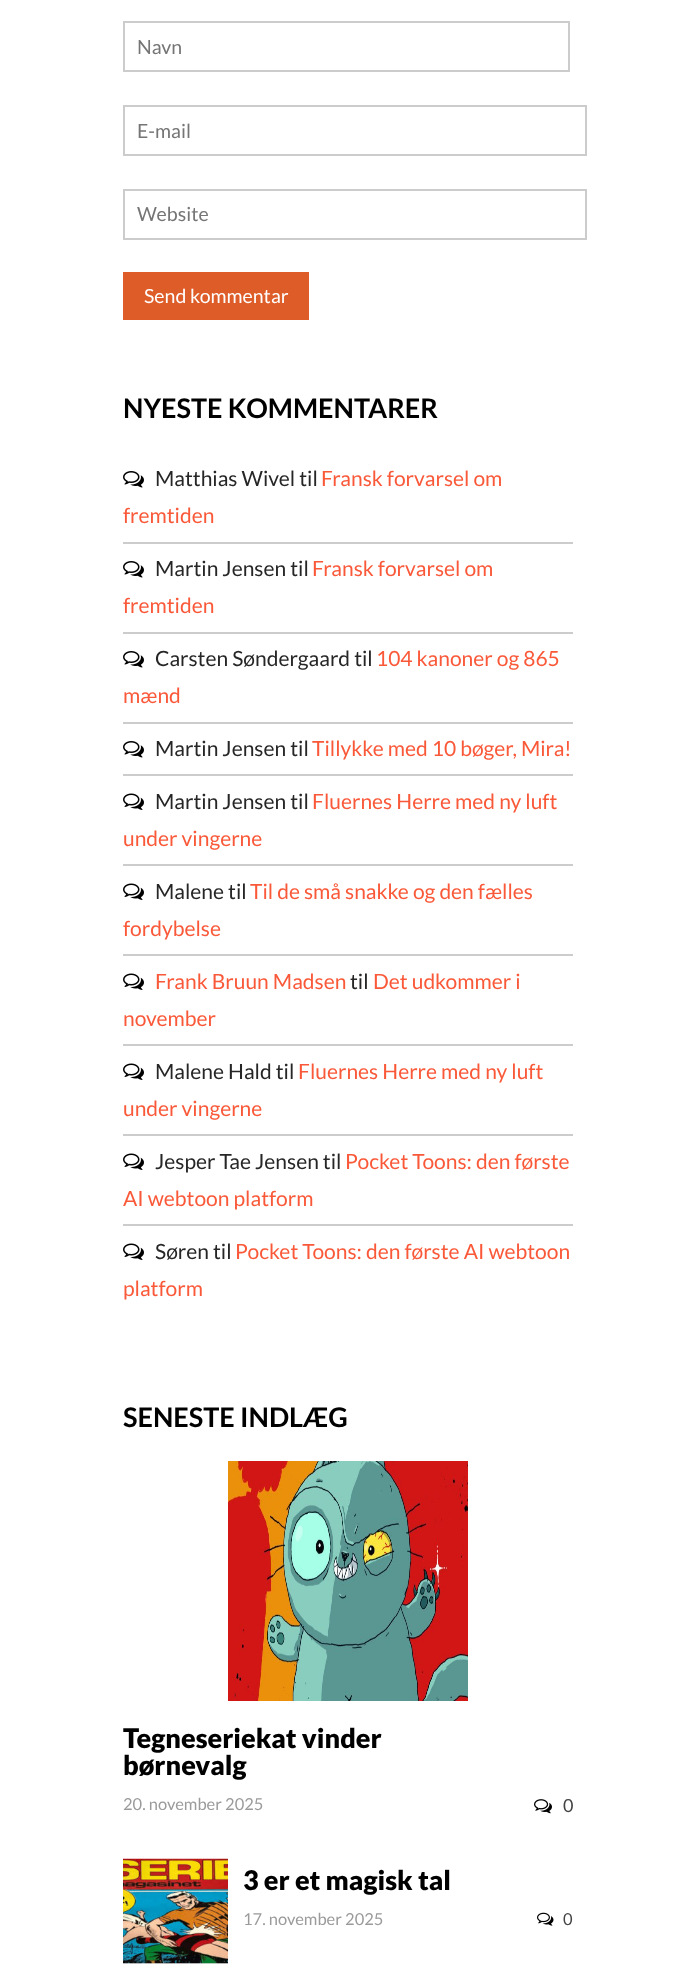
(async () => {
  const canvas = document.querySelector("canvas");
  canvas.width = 696;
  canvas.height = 1979;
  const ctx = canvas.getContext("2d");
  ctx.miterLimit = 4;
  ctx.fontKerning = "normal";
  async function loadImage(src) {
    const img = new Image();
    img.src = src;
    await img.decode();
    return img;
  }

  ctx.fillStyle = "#ffffff";
  ctx.fillRect(0, 0, 696, 1979);
  ctx.strokeStyle = "#cccccc";
  ctx.lineWidth = 2;
  ctx.strokeRect(124, 22, 445, 49);
  ctx.strokeRect(124, 106, 462, 49);
  ctx.strokeRect(124, 190, 462, 49);
  ctx.fillStyle = "#de5c28";
  ctx.fillRect(123, 272, 186, 48);
  ctx.fillStyle = "#cccccc";
  ctx.fillRect(123, 542, 450, 2);
  ctx.drawImage(await loadImage("img/1.png"), 123, 471, 21, 17);
  ctx.fillRect(123, 632, 450, 2);
  ctx.drawImage(await loadImage("img/1.png"), 123, 561, 21, 17);
  ctx.fillRect(123, 722, 450, 2);
  ctx.drawImage(await loadImage("img/1.png"), 123, 651, 21, 17);
  ctx.fillRect(123, 774, 450, 2);
  ctx.drawImage(await loadImage("img/1.png"), 123, 741, 21, 17);
  ctx.fillRect(123, 864, 450, 2);
  ctx.drawImage(await loadImage("img/2.png"), 123, 793, 21, 17);
  ctx.fillRect(123, 954, 450, 2);
  ctx.drawImage(await loadImage("img/2.png"), 123, 883, 21, 17);
  ctx.fillRect(123, 1044, 450, 2);
  ctx.drawImage(await loadImage("img/2.png"), 123, 973, 21, 17);
  ctx.fillRect(123, 1134, 450, 2);
  ctx.drawImage(await loadImage("img/2.png"), 123, 1063, 21, 17);
  ctx.fillRect(123, 1224, 450, 2);
  ctx.drawImage(await loadImage("img/2.png"), 123, 1153, 21, 17);
  ctx.drawImage(await loadImage("img/2.png"), 123, 1243, 21, 17);
  ctx.drawImage(await loadImage("img/3.png"), 228, 1461, 240, 240);
  ctx.drawImage(await loadImage("img/4.png"), 534, 1799, 18, 15);
  ctx.fillStyle = "#ebebeb";
  ctx.fillRect(123, 1963, 105, 1);
  ctx.drawImage(await loadImage("img/5.png"), 123, 1858, 105, 106);
  ctx.drawImage(await loadImage("img/6.png"), 537, 1912, 17, 14);
  ctx.font = "19.5px Lato";
  ctx.fillStyle = "#757575";
  for (const [text, x, y] of [
    ["Navn", 137, 54],
    ["E-mail", 137, 138],
    ["Website", 137, 221],
  ]) {
    ctx.fillText(text, x, y);
  }
  ctx.fillStyle = "#ffffff";
  ctx.fillText("Send kommentar", 144, 303);
  ctx.font = "bold 27px Lato";
  ctx.fillStyle = "#000000";
  ctx.fillText("NYESTE KOMMENTARER", 123, 418);
  ctx.font = "21px Lato";
  ctx.fillStyle = "#262626";
  ctx.fillText("Matthias Wivel til", 155, 486);
  ctx.fillStyle = "#fa5939";
  ctx.fillText("Fransk forvarsel om", 321, 486);
  ctx.fillText("fremtiden", 123, 523);
  ctx.fillStyle = "#262626";
  ctx.fillText("Martin Jensen til", 155, 576);
  ctx.fillStyle = "#fa5939";
  ctx.fillText("Fransk forvarsel om", 312, 576);
  ctx.fillText("fremtiden", 123, 613);
  ctx.fillStyle = "#262626";
  ctx.fillText("Carsten Søndergaard til", 155, 666);
  ctx.fillStyle = "#fa5939";
  ctx.fillText("104 kanoner og 865", 376, 666);
  ctx.fillText("mænd", 123, 703);
  ctx.fillStyle = "#262626";
  ctx.fillText("Martin Jensen til", 155, 756);
  ctx.fillStyle = "#fa5939";
  ctx.fillText("Tillykke med 10 bøger, Mira!", 312, 756);
  ctx.fillStyle = "#262626";
  ctx.fillText("Martin Jensen til", 155, 809);
  ctx.fillStyle = "#fa5939";
  ctx.fillText("Fluernes Herre med ny luft", 312, 809);
  ctx.fillText("under vingerne", 123, 846);
  ctx.fillStyle = "#262626";
  ctx.fillText("Malene til", 155, 899);
  ctx.fillStyle = "#fa5939";
  for (const [text, x, y] of [
    ["Til de små snakke og den fælles", 250, 899],
    ["fordybelse", 123, 936],
    ["Frank Bruun Madsen", 155, 989],
  ]) {
    ctx.fillText(text, x, y);
  }
  ctx.fillStyle = "#262626";
  ctx.fillText("til", 350, 989);
  ctx.fillStyle = "#fa5939";
  ctx.fillText("Det udkommer i", 373, 989);
  ctx.fillText("november", 123, 1026);
  ctx.fillStyle = "#262626";
  ctx.fillText("Malene Hald til", 155, 1079);
  ctx.fillStyle = "#fa5939";
  ctx.fillText("Fluernes Herre med ny luft", 298, 1079);
  ctx.fillText("under vingerne", 123, 1116);
  ctx.fillStyle = "#262626";
  ctx.fillText("Jesper Tae Jensen til", 155, 1169);
  ctx.fillStyle = "#fa5939";
  ctx.fillText("Pocket Toons: den første", 345, 1169);
  ctx.fillText("AI webtoon platform", 123, 1206);
  ctx.fillStyle = "#262626";
  ctx.fillText("Søren til", 155, 1259);
  ctx.fillStyle = "#fa5939";
  ctx.fillText("Pocket Toons: den første AI webtoon", 235, 1259);
  ctx.fillText("platform", 123, 1296);
  ctx.font = "bold 27px Lato";
  ctx.fillStyle = "#000000";
  ctx.fillText("SENESTE INDLÆG", 123, 1427);
  ctx.font = "900 27px Lato";
  ctx.fillText("Tegneseriekat vinder", 123, 1748);
  ctx.fillText("børnevalg", 123, 1775);
  ctx.font = "16.5px Lato";
  ctx.fillStyle = "#9b9b9b";
  ctx.fillText("20. november 2025", 123, 1810);
  ctx.font = "18px Lato";
  ctx.fillStyle = "#444444";
  ctx.fillText("0", 563, 1812);
  ctx.font = "900 27px Lato";
  ctx.fillStyle = "#000000";
  ctx.fillText("3 er et magisk tal", 243, 1890);
  ctx.font = "16.5px Lato";
  ctx.fillStyle = "#9b9b9b";
  ctx.fillText("17. november 2025", 243, 1925);
  ctx.fillStyle = "#444444";
  ctx.fillText("0", 563, 1925);
})();
